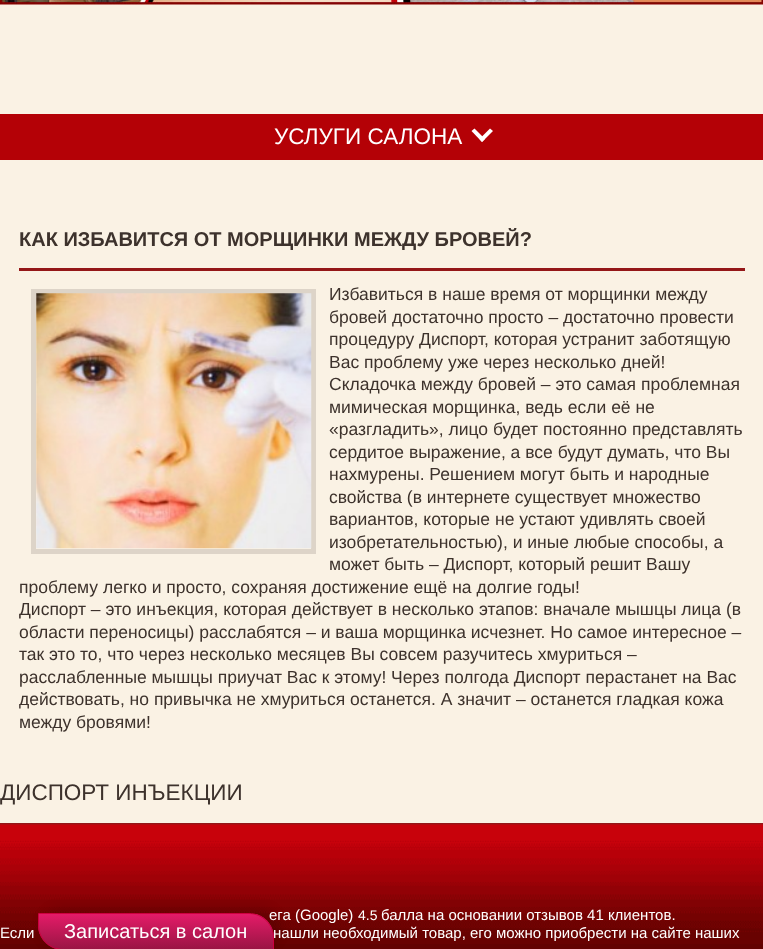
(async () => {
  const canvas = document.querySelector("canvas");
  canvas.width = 763;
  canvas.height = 949;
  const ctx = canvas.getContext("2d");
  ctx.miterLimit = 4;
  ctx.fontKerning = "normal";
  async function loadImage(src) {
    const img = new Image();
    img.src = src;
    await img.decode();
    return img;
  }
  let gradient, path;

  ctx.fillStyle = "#faf2e4";
  ctx.fillRect(0, 0, 763, 949);
  ctx.drawImage(await loadImage("img/1.png"), 0, 0, 763, 5);
  ctx.fillStyle = "#b40106";
  ctx.fillRect(0, 114, 763, 46);
  ctx.fillStyle = "#ffffff";
  path = new Path2D("M490 128.5L493 131L482 142L479.5 139Z");
  ctx.fill(path);
  path = new Path2D("M474.5 128.5L485 139L482 142L471.5 131Z");
  ctx.fill(path);
  ctx.fillStyle = "#941718";
  ctx.fillRect(19, 268, 726, 3);
  ctx.strokeStyle = "#ddd4c8";
  ctx.lineWidth = 5;
  ctx.strokeRect(33.5, 291.5, 280, 260);
  ctx.drawImage(await loadImage("img/2.png"), 36, 293, 276, 256);
  ctx.fillRect(0, 823, 763, 2);
  ctx.fillStyle = "#620201";
  ctx.fillRect(0, 825, 763, 124);
  ctx.drawImage(await loadImage("img/3.png"), 0, 824, 763, 120);
  ctx.fillStyle = "rgba(0, 0, 0, 0.12)";
  ctx.filter = "blur(5.5px)";
  ctx.beginPath();
  ctx.roundRect(41, 908, 239, 40, 26);
  ctx.fill();
  ctx.filter = "none";
  ctx.font = "22.5px Liberation Sans";
  ctx.fillStyle = "#ffffff";
  ctx.fillText("УСЛУГИ САЛОНА", 274, 144);
  ctx.font = "bold 20px Liberation Sans";
  ctx.fillStyle = "#3d322c";
  ctx.fillText("КАК ИЗБАВИТСЯ ОТ МОРЩИНКИ МЕЖДУ БРОВЕЙ?", 19, 246);
  ctx.font = "17.5px Liberation Sans";
  for (const [text, x, y] of [
    ["Избавиться в наше время от морщинки между", 329, 300],
    ["бровей достаточно просто – достаточно провести", 329, 323],
    ["процедуру Диспорт, которая устранит заботящую", 329, 345],
    ["Вас проблему уже через несколько дней!", 329, 368],
    ["Складочка между бровей – это самая проблемная", 329, 390],
    ["мимическая морщинка, ведь если её не", 329, 413],
    ["«разгладить», лицо будет постоянно представлять", 329, 435],
    ["сердитое выражение, а все будут думать, что Вы", 329, 458],
    ["нахмурены. Решением могут быть и народные", 329, 480],
    ["свойства (в интернете существует множество", 329, 503],
    ["вариантов, которые не устают удивлять своей", 329, 525],
    ["изобретательностью), и иные любые способы, а", 329, 548],
    ["может быть – Диспорт, который решит Вашу", 329, 570],
    ["проблему легко и просто, сохраняя достижение ещё на долгие годы!", 19, 593],
    ["Диспорт – это инъекция, которая действует в несколько этапов: вначале мышцы лица (в", 19, 615],
    ["области переносицы) расслабятся – и ваша морщинка исчезнет. Но самое интересное –", 19, 638],
    ["так это то, что через несколько месяцев Вы совсем разучитесь хмуриться –", 19, 660],
    ["расслабленные мышцы приучат Вас к этому! Через полгода Диспорт перастанет на Вас", 19, 683],
    ["действовать, но привычка не хмуриться останется. А значит – останется гладкая кожа", 19, 705],
    ["между бровями!", 19, 728],
  ]) {
    ctx.fillText(text, x, y);
  }
  ctx.font = "22.5px Liberation Sans";
  ctx.fillText("ДИСПОРТ ИНЪЕКЦИИ", 0, 800);
  ctx.font = "15px Liberation Sans";
  ctx.fillStyle = "#ffffff";
  ctx.fillText("ега (Google)", 269, 920);
  ctx.font = "14px Liberation Sans";
  ctx.fillText("4.5", 358, 920);
  ctx.font = "15px Liberation Sans";
  for (const [text, x, y] of [
    ["балла на основании отзывов 41 клиентов.", 381, 920],
    ["Если", 0, 938],
    ["нашли необходимый товар, его можно приобрести на сайте наших", 273, 938],
  ]) {
    ctx.fillText(text, x, y);
  }
  ctx.save();
  path = new Path2D("M38 913H249C263 913 274 924 274 938V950H63C49 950 38 939 38 925Z");
  ctx.clip(path);
  gradient = ctx.createLinearGradient(156, 914, 156, 949);
  gradient.addColorStop(0, "#e41b68");
  gradient.addColorStop(1, "#9a1544");
  ctx.fillStyle = gradient;
  ctx.fillRect(38, 914, 236, 35);
  ctx.restore();
  path = new Path2D("M38.5 913.5H249C262.5 913.5 273.5 924.5 273.5 938V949.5H63C49.5 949.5 38.5 938.5 38.5 925Z");
  ctx.strokeStyle = "#cd0040";
  ctx.lineWidth = 1;
  ctx.stroke(path);
  ctx.font = "20px Liberation Sans";
  ctx.fillText("Записаться в салон", 64, 938);
})();
